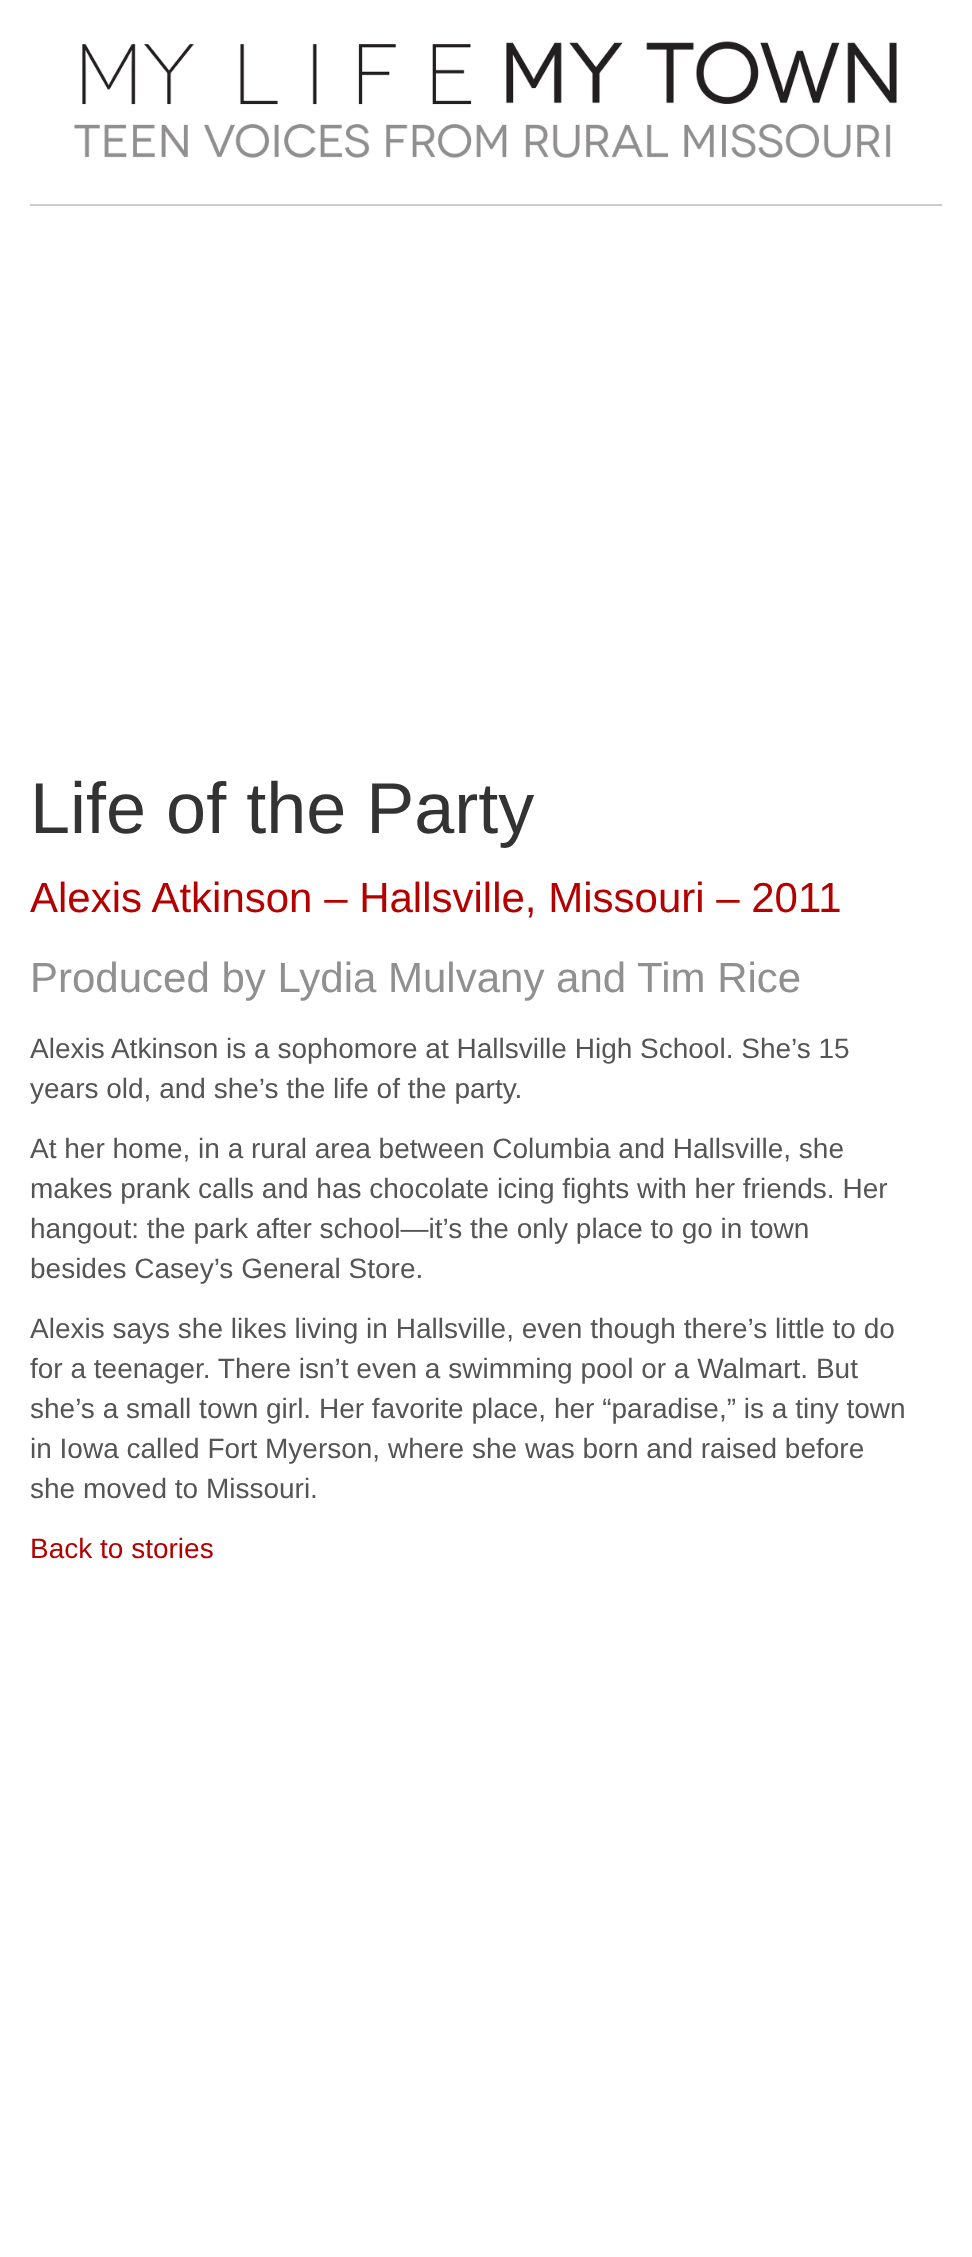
(async () => {
  const canvas = document.querySelector("canvas");
  canvas.width = 972;
  canvas.height = 2257;
  const ctx = canvas.getContext("2d");
  ctx.miterLimit = 4;
  ctx.fontKerning = "normal";
  async function loadImage(src) {
    const img = new Image();
    img.src = src;
    await img.decode();
    return img;
  }

  ctx.fillStyle = "#ffffff";
  ctx.fillRect(0, 0, 972, 2257);
  ctx.fillStyle = "#cccccc";
  ctx.fillRect(30, 204, 912, 2);
  ctx.drawImage(await loadImage("img/1.png"), 74, 41, 823, 117);
  ctx.font = "72px Liberation Sans";
  ctx.fillStyle = "#333333";
  ctx.fillText("Life of the Party", 30, 833);
  ctx.font = "42px Liberation Sans";
  ctx.fillStyle = "#b40001";
  ctx.fillText("Alexis Atkinson – Hallsville, Missouri – 2011", 30, 912);
  ctx.fillStyle = "#909090";
  ctx.fillText("Produced by Lydia Mulvany and Tim Rice", 30, 992);
  ctx.font = "28px Liberation Sans";
  ctx.fillStyle = "#555555";
  for (const [text, x, y] of [
    ["Alexis Atkinson is a sophomore at Hallsville High School. She’s 15", 30, 1058],
    ["years old, and she’s the life of the party.", 30, 1098],
    ["At her home, in a rural area between Columbia and Hallsville, she", 30, 1158],
    ["makes prank calls and has chocolate icing fights with her friends. Her", 30, 1198],
    ["hangout: the park after school—it’s the only place to go in town", 30, 1238],
    ["besides Casey’s General Store.", 30, 1278],
    ["Alexis says she likes living in Hallsville, even though there’s little to do", 30, 1338],
    ["for a teenager. There isn’t even a swimming pool or a Walmart. But", 30, 1378],
    ["she’s a small town girl. Her favorite place, her “paradise,” is a tiny town", 30, 1418],
    ["in Iowa called Fort Myerson, where she was born and raised before", 30, 1458],
    ["she moved to Missouri.", 30, 1498],
  ]) {
    ctx.fillText(text, x, y);
  }
  ctx.fillStyle = "#b40001";
  ctx.fillText("Back to stories", 30, 1558);
})();
